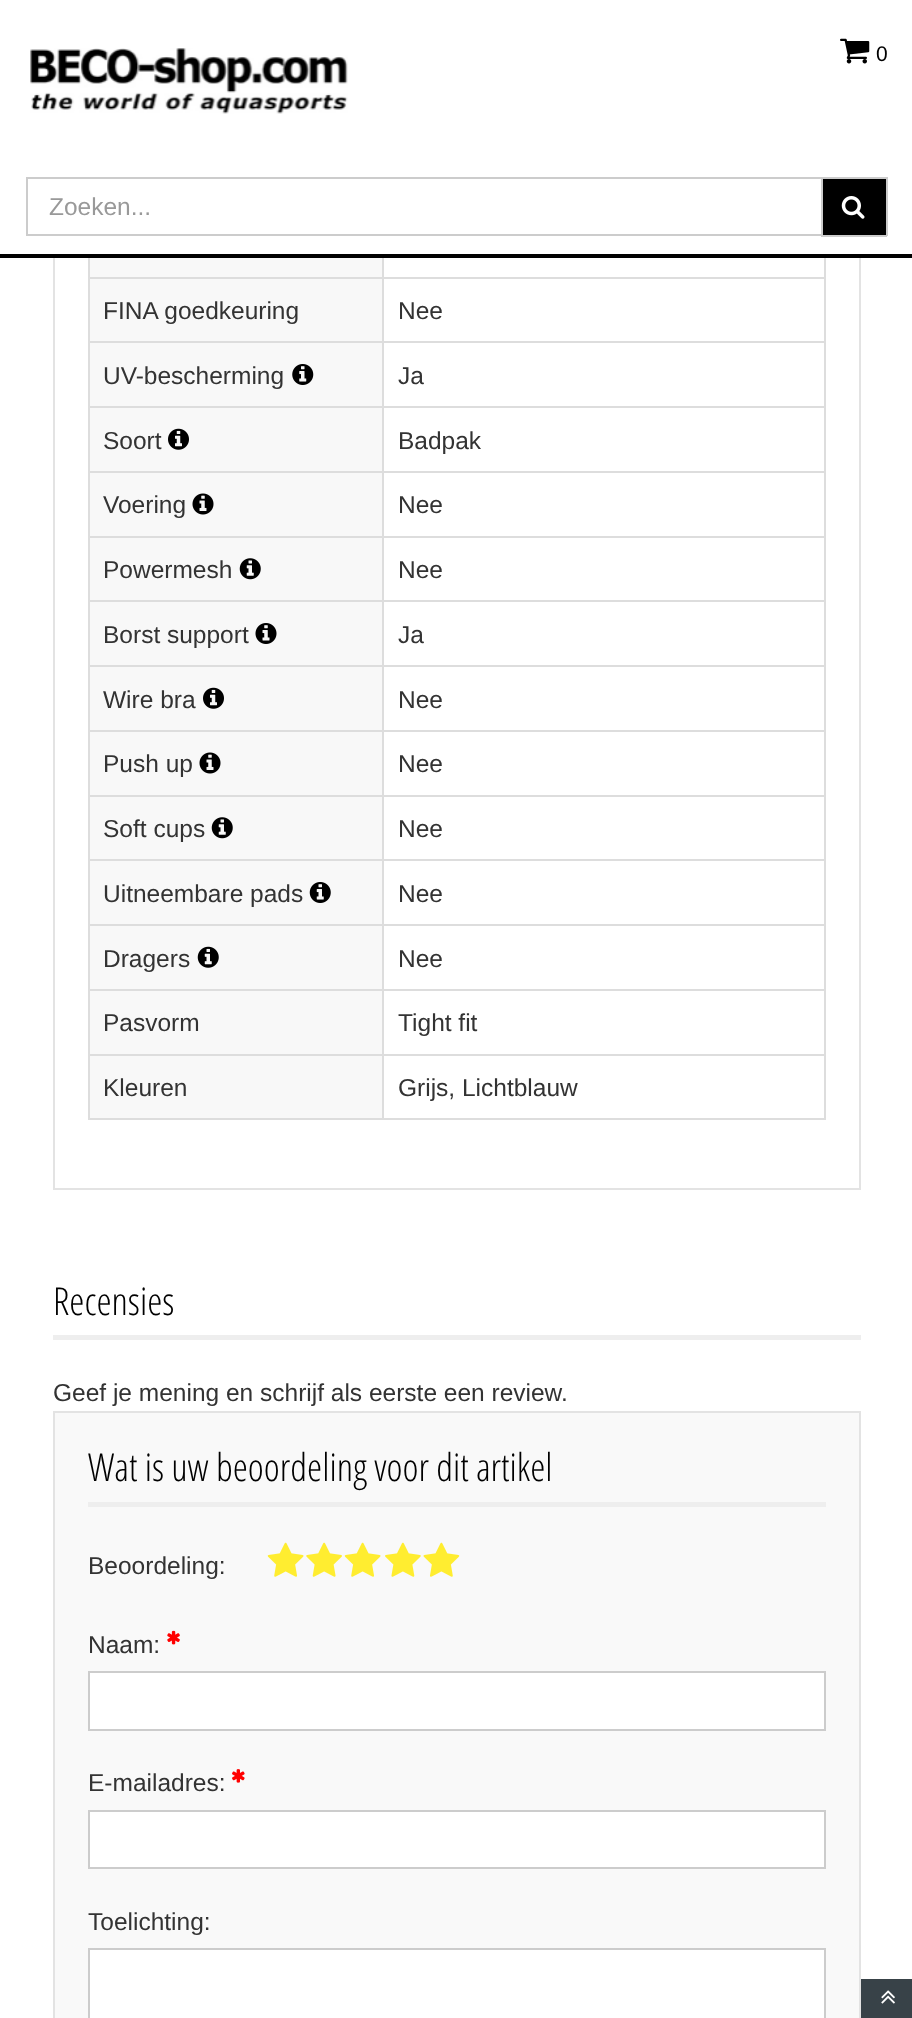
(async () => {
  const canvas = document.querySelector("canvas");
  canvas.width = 912;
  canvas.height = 2018;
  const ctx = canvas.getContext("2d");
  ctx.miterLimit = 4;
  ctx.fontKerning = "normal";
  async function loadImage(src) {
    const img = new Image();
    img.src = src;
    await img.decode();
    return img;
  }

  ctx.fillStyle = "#ffffff";
  ctx.fillRect(0, 0, 912, 2018);
  ctx.fillStyle = "#000000";
  ctx.fillRect(0, 254, 912, 4);
  ctx.drawImage(await loadImage("img/1.png"), 30, 48, 318, 66);
  ctx.drawImage(await loadImage("img/2.png"), 840, 38, 30, 26);
  for (const [x, y, w, h, color] of [
    [821, 177, 66, 2, "#cccccc"],
    [886, 177, 2, 59, "#cccccc"],
    [821, 235, 66, 2, "#cccccc"],
  ]) {
    ctx.fillStyle = color;
    ctx.fillRect(x, y, w, h);
  }
  ctx.strokeStyle = "#cccccc";
  ctx.lineWidth = 2;
  ctx.strokeRect(27, 178, 795, 57);
  ctx.fillStyle = "#000000";
  ctx.fillRect(823, 179, 63, 56);
  ctx.drawImage(await loadImage("img/3.png"), 841, 196, 24, 23);
  for (const [x, y, w, h, color] of [
    [859, 258, 2, 932, "#e3e3e3"],
    [53, 1188, 808, 2, "#e3e3e3"],
    [53, 258, 2, 932, "#e3e3e3"],
    [824, 258, 2, 862, "#dddddd"],
    [88, 1118, 738, 2, "#dddddd"],
    [88, 258, 2, 862, "#dddddd"],
    [90, 258, 292, 19, "#f8f8f8"],
    [382, 277, 444, 2, "#dddddd"],
    [382, 341, 444, 2, "#dddddd"],
    [382, 406, 444, 2, "#dddddd"],
    [382, 471, 444, 2, "#dddddd"],
    [382, 536, 444, 2, "#dddddd"],
    [382, 600, 444, 2, "#dddddd"],
    [382, 665, 444, 2, "#dddddd"],
    [382, 730, 444, 2, "#dddddd"],
    [382, 795, 444, 2, "#dddddd"],
    [382, 859, 444, 2, "#dddddd"],
    [382, 924, 444, 2, "#dddddd"],
    [382, 989, 444, 2, "#dddddd"],
    [382, 1054, 444, 2, "#dddddd"],
    [382, 1054, 2, 66, "#dddddd"],
    [88, 1054, 295, 2, "#dddddd"],
    [382, 989, 2, 66, "#dddddd"],
    [88, 989, 295, 2, "#dddddd"],
    [382, 924, 2, 67, "#dddddd"],
    [88, 924, 295, 2, "#dddddd"],
    [382, 859, 2, 67, "#dddddd"],
    [88, 859, 295, 2, "#dddddd"],
    [382, 795, 2, 66, "#dddddd"],
    [88, 795, 295, 2, "#dddddd"],
    [382, 730, 2, 66, "#dddddd"],
    [88, 730, 295, 2, "#dddddd"],
    [382, 665, 2, 67, "#dddddd"],
    [88, 665, 295, 2, "#dddddd"],
    [382, 600, 2, 67, "#dddddd"],
    [88, 600, 295, 2, "#dddddd"],
    [382, 536, 2, 66, "#dddddd"],
    [88, 536, 295, 2, "#dddddd"],
    [382, 471, 2, 66, "#dddddd"],
    [88, 471, 295, 2, "#dddddd"],
    [382, 406, 2, 67, "#dddddd"],
    [88, 406, 295, 2, "#dddddd"],
    [382, 341, 2, 67, "#dddddd"],
    [88, 341, 295, 2, "#dddddd"],
    [382, 277, 2, 66, "#dddddd"],
    [88, 277, 295, 2, "#dddddd"],
    [382, 258, 2, 20, "#dddddd"],
    [90, 279, 292, 62, "#f8f8f8"],
    [90, 343, 292, 63, "#f8f8f8"],
  ]) {
    ctx.fillStyle = color;
    ctx.fillRect(x, y, w, h);
  }
  ctx.drawImage(await loadImage("img/4.png"), 292, 364, 22, 21);
  ctx.fillRect(90, 408, 292, 63);
  ctx.drawImage(await loadImage("img/5.png"), 168, 428, 21, 22);
  ctx.fillRect(90, 473, 292, 63);
  ctx.drawImage(await loadImage("img/6.png"), 192, 493, 22, 22);
  ctx.fillRect(90, 538, 292, 62);
  ctx.drawImage(await loadImage("img/7.png"), 239, 558, 22, 22);
  ctx.fillRect(90, 602, 292, 63);
  ctx.drawImage(await loadImage("img/8.png"), 255, 623, 22, 21);
  ctx.fillRect(90, 667, 292, 63);
  ctx.drawImage(await loadImage("img/5.png"), 203, 687, 21, 22);
  ctx.fillRect(90, 732, 292, 63);
  ctx.drawImage(await loadImage("img/6.png"), 199, 752, 22, 22);
  ctx.fillRect(90, 797, 292, 62);
  ctx.drawImage(await loadImage("img/7.png"), 211, 817, 22, 22);
  ctx.fillRect(90, 861, 292, 63);
  ctx.drawImage(await loadImage("img/9.png"), 309, 882, 22, 21);
  ctx.fillRect(90, 926, 292, 63);
  ctx.drawImage(await loadImage("img/10.png"), 197, 946, 22, 22);
  for (const [x, y, w, h, color] of [
    [90, 991, 292, 63, "#f8f8f8"],
    [90, 1056, 292, 62, "#f8f8f8"],
    [53, 1335, 808, 5, "#eeeeee"],
  ]) {
    ctx.fillStyle = color;
    ctx.fillRect(x, y, w, h);
  }
  ctx.fillStyle = "#f9f9f9";
  ctx.beginPath();
  ctx.rect(54, 1412, 806, 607);
  ctx.fill();
  ctx.strokeStyle = "#e3e3e3";
  ctx.stroke();
  ctx.fillStyle = "#eeeeee";
  ctx.fillRect(88, 1502, 738, 5);
  ctx.drawImage(await loadImage("img/11.png"), 267, 1542, 37, 35);
  ctx.drawImage(await loadImage("img/12.png"), 306, 1542, 36, 35);
  ctx.drawImage(await loadImage("img/11.png"), 344, 1542, 37, 35);
  ctx.drawImage(await loadImage("img/13.png"), 385, 1542, 36, 35);
  ctx.drawImage(await loadImage("img/14.png"), 423, 1542, 37, 35);
  ctx.drawImage(await loadImage("img/15.png"), 167, 1630, 13, 15);
  ctx.fillStyle = "#ffffff";
  ctx.beginPath();
  ctx.rect(89, 1672, 736, 58);
  ctx.fill();
  ctx.strokeStyle = "#cccccc";
  ctx.stroke();
  ctx.drawImage(await loadImage("img/16.png"), 232, 1769, 13, 14);
  ctx.beginPath();
  ctx.rect(89, 1811, 736, 57);
  ctx.fill();
  ctx.stroke();
  ctx.beginPath();
  ctx.rect(89, 1949, 736, 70);
  ctx.fill();
  ctx.stroke();
  ctx.fillStyle = "#384248";
  ctx.fillRect(861, 1979, 51, 39);
  ctx.drawImage(await loadImage("img/17.png"), 881, 1990, 14, 14);
  ctx.font = "21px Liberation Sans";
  ctx.fillStyle = "#000000";
  ctx.fillText("0", 876, 61);
  ctx.font = "24.5px Liberation Sans";
  ctx.fillStyle = "#999999";
  ctx.fillText("Zoeken...", 49, 215);
  ctx.fillStyle = "#333333";
  for (const [text, x, y] of [
    ["FINA goedkeuring", 103, 319],
    ["Nee", 398, 319],
    ["UV-bescherming", 103, 384],
    ["Ja", 398, 384],
    ["Soort", 103, 449],
    ["Badpak", 398, 449],
    ["Voering", 103, 513],
    ["Nee", 398, 513],
    ["Powermesh", 103, 578],
    ["Nee", 398, 578],
    ["Borst support", 103, 643],
    ["Ja", 398, 643],
    ["Wire bra", 103, 708],
    ["Nee", 398, 708],
    ["Push up", 103, 772],
    ["Nee", 398, 772],
    ["Soft cups", 103, 837],
    ["Nee", 398, 837],
    ["Uitneembare pads", 103, 902],
    ["Nee", 398, 902],
    ["Dragers", 103, 967],
    ["Nee", 398, 967],
    ["Pasvorm", 103, 1031],
    ["Tight fit", 398, 1031],
    ["Kleuren", 103, 1096],
    ["Grijs, Lichtblauw", 398, 1096],
  ]) {
    ctx.fillText(text, x, y);
  }
  ctx.font = "300 38.5px Open Sans Condensed";
  ctx.fillStyle = "#000000";
  ctx.fillText("Recensies", 53, 1315);
  ctx.font = "24.5px Liberation Sans";
  ctx.fillStyle = "#333333";
  ctx.fillText("Geef je mening en schrijf als eerste een review.", 53, 1401);
  ctx.font = "300 38.5px Open Sans Condensed";
  ctx.fillStyle = "#000000";
  ctx.fillText("Wat is uw beoordeling voor dit artikel", 88, 1481);
  ctx.font = "24.5px Liberation Sans";
  ctx.fillStyle = "#333333";
  for (const [text, x, y] of [
    ["Beoordeling:", 88, 1574],
    ["Naam:", 88, 1653],
    ["E-mailadres:", 88, 1791],
    ["Toelichting:", 88, 1930],
  ]) {
    ctx.fillText(text, x, y);
  }
})();
